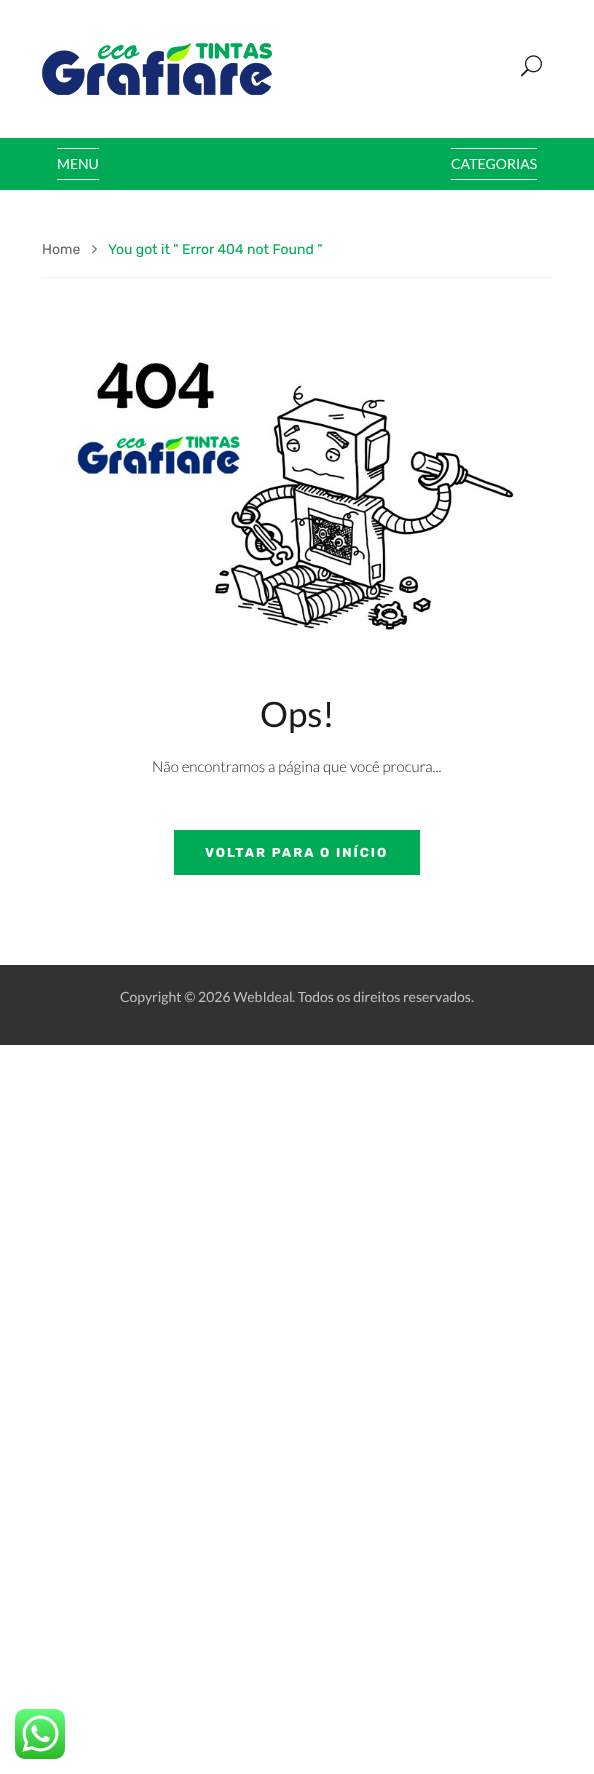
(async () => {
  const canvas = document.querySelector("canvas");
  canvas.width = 594;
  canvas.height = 1774;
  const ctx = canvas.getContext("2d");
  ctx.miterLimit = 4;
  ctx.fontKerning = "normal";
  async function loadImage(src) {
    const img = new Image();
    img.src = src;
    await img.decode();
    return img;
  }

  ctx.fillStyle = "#ffffff";
  ctx.fillRect(0, 0, 594, 1774);
  ctx.drawImage(await loadImage("img/1.png"), 42, 43, 230, 52);
  ctx.drawImage(await loadImage("img/2.png"), 521, 55, 21, 22);
  for (const [x, y, w, h, color] of [
    [0, 138, 594, 52, "#00ab55"],
    [57, 148, 42, 1, "#ffffff"],
    [57, 179, 42, 1, "#ffffff"],
    [451, 148, 86, 1, "#ffffff"],
    [451, 179, 86, 1, "#ffffff"],
    [42, 277, 510, 1, "#f5f5f5"],
  ]) {
    ctx.fillStyle = color;
    ctx.fillRect(x, y, w, h);
  }
  ctx.drawImage(await loadImage("img/3.png"), 92, 245, 5, 9);
  ctx.drawImage(await loadImage("img/4.png"), 77, 357, 437, 274);
  ctx.fillStyle = "#00ab55";
  ctx.fillRect(174, 830, 246, 45);
  ctx.fillStyle = "#323232";
  ctx.fillRect(0, 965, 594, 80);
  ctx.drawImage(await loadImage("img/5.png"), 15, 1709, 50, 50);
  ctx.font = "14px Lato";
  ctx.fillStyle = "#ffffff";
  ctx.fillText("MENU", 57, 169);
  ctx.fillText("CATEGORIAS", 451, 169);
  ctx.font = "14px Rubik";
  ctx.fillStyle = "#666666";
  ctx.fillText("Home", 42, 254);
  ctx.fillStyle = "#00ab55";
  ctx.fillText("You got it \" Error 404 not Found \"", 108, 254);
  ctx.font = "35px Lato";
  ctx.fillStyle = "#1b1b1b";
  ctx.fillText("Ops!", 260, 727);
  ctx.font = "300 15px Lato";
  ctx.fillText("Não encontramos a página que você procura...", 152, 772);
  ctx.letterSpacing = "2px";
  ctx.font = "bold 13px Rubik";
  ctx.fillStyle = "#ffffff";
  ctx.fillText("VOLTAR PARA O INÍCIO", 205, 857);
  ctx.letterSpacing = "0px";
  ctx.font = "14px Lato";
  ctx.fillStyle = "#c1c1c1";
  ctx.fillText("Copyright © 2026 WebIdeal", 120, 1002);
  ctx.fillText(". Todos os direitos reservados.", 292, 1002);
})();
